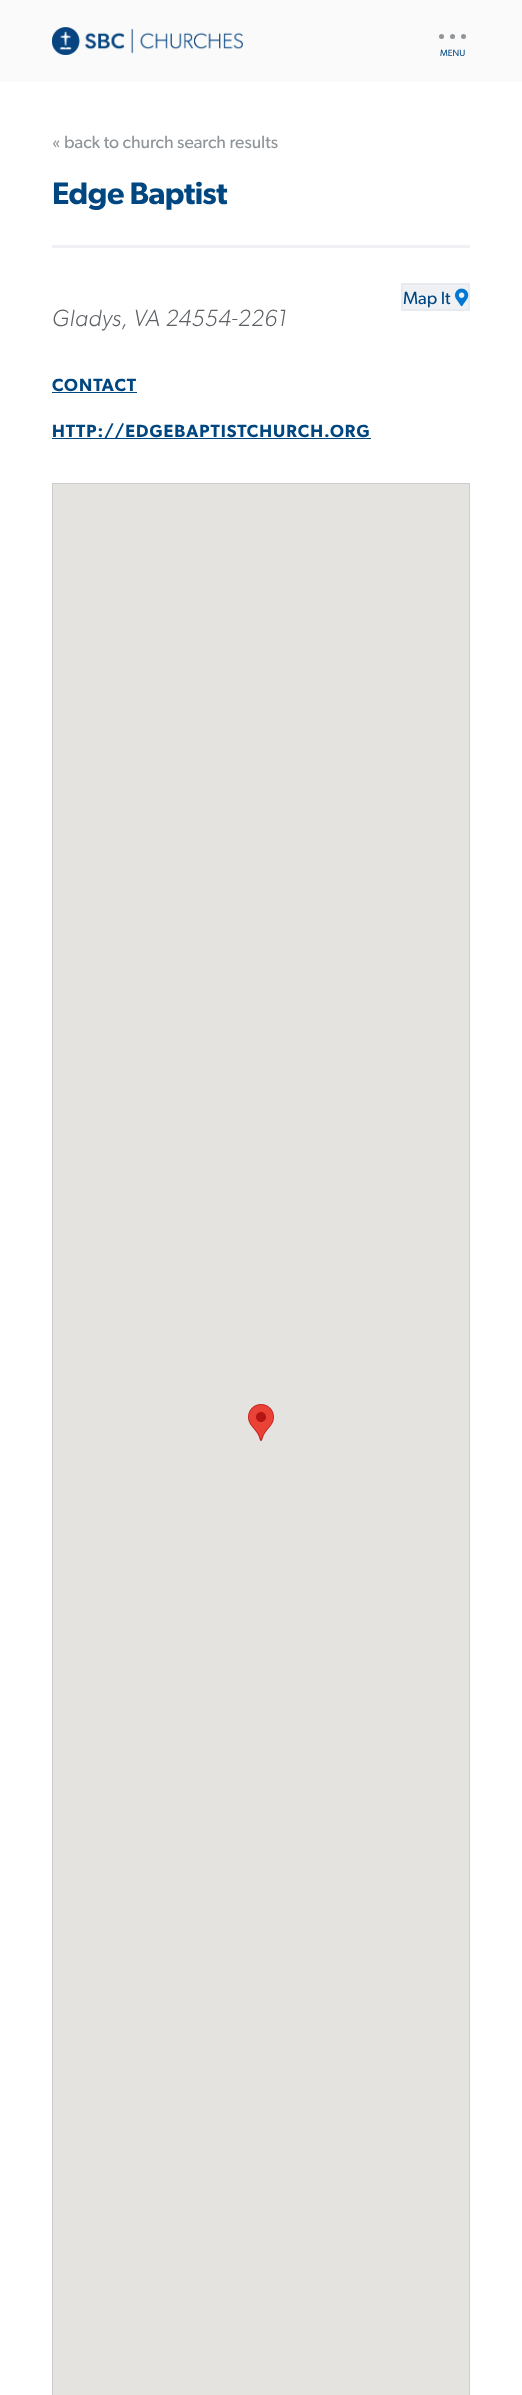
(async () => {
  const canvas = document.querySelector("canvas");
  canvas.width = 522;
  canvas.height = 2395;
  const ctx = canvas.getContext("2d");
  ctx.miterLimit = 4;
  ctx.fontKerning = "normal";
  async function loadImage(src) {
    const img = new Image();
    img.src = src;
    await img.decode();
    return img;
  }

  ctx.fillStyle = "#ffffff";
  ctx.fillRect(0, 0, 522, 2395);
  ctx.fillStyle = "#fafafa";
  ctx.fillRect(0, 0, 522, 82);
  ctx.drawImage(await loadImage("img/1.png"), 52, 27, 191, 28);
  ctx.fillStyle = "#8f9599";
  ctx.beginPath();
  ctx.arc(441.5, 36.5, 2.5, 0, Math.PI * 2);
  ctx.fill();
  ctx.beginPath();
  ctx.arc(452.5, 36.5, 2.5, 0, Math.PI * 2);
  ctx.fill();
  ctx.beginPath();
  ctx.arc(463.5, 36.5, 2.5, 0, Math.PI * 2);
  ctx.fill();
  ctx.fillStyle = "#eff1f5";
  ctx.fillRect(52, 245, 418, 3);
  ctx.beginPath();
  ctx.rect(402, 284, 67, 26);
  ctx.fill();
  ctx.strokeStyle = "#e7eaef";
  ctx.lineWidth = 2;
  ctx.stroke();
  ctx.drawImage(await loadImage("img/2.png"), 455, 288, 14, 19);
  ctx.fillStyle = "#004680";
  ctx.fillRect(52, 392, 85, 1);
  ctx.fillRect(52, 438, 319, 1);
  ctx.strokeStyle = "#cccccc";
  ctx.lineWidth = 1;
  ctx.strokeRect(52.5, 483.5, 417, 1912);
  ctx.fillStyle = "#e5e3df";
  ctx.fillRect(53, 484, 416, 1911);
  ctx.drawImage(await loadImage("img/3.png"), 248, 1404, 26, 37);
  ctx.font = "9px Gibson";
  ctx.fillStyle = "#004680";
  ctx.fillText("MENU", 440, 56);
  ctx.font = "17.6px Gibson";
  ctx.fillStyle = "#8f9599";
  ctx.fillText("« back to church search results", 52, 148);
  ctx.letterSpacing = "-0.5px";
  ctx.font = "600 31.25px Gibson";
  ctx.fillStyle = "#004680";
  ctx.fillText("Edge Baptist", 52, 204);
  ctx.letterSpacing = "0px";
  ctx.font = "17.6px Gibson";
  ctx.fillText("Map It", 403, 304);
  ctx.letterSpacing = "0.5px";
  ctx.font = "italic 300 23.5px Gibson";
  ctx.fillStyle = "#5d6166";
  ctx.fillText("Gladys, VA 24554-2261", 52, 326);
  ctx.letterSpacing = "1px";
  ctx.font = "600 17.6px Gibson";
  ctx.fillStyle = "#004680";
  ctx.fillText("CONTACT", 52, 391);
  ctx.fillText("HTTP://EDGEBAPTISTCHURCH.ORG", 52, 437);
})();
